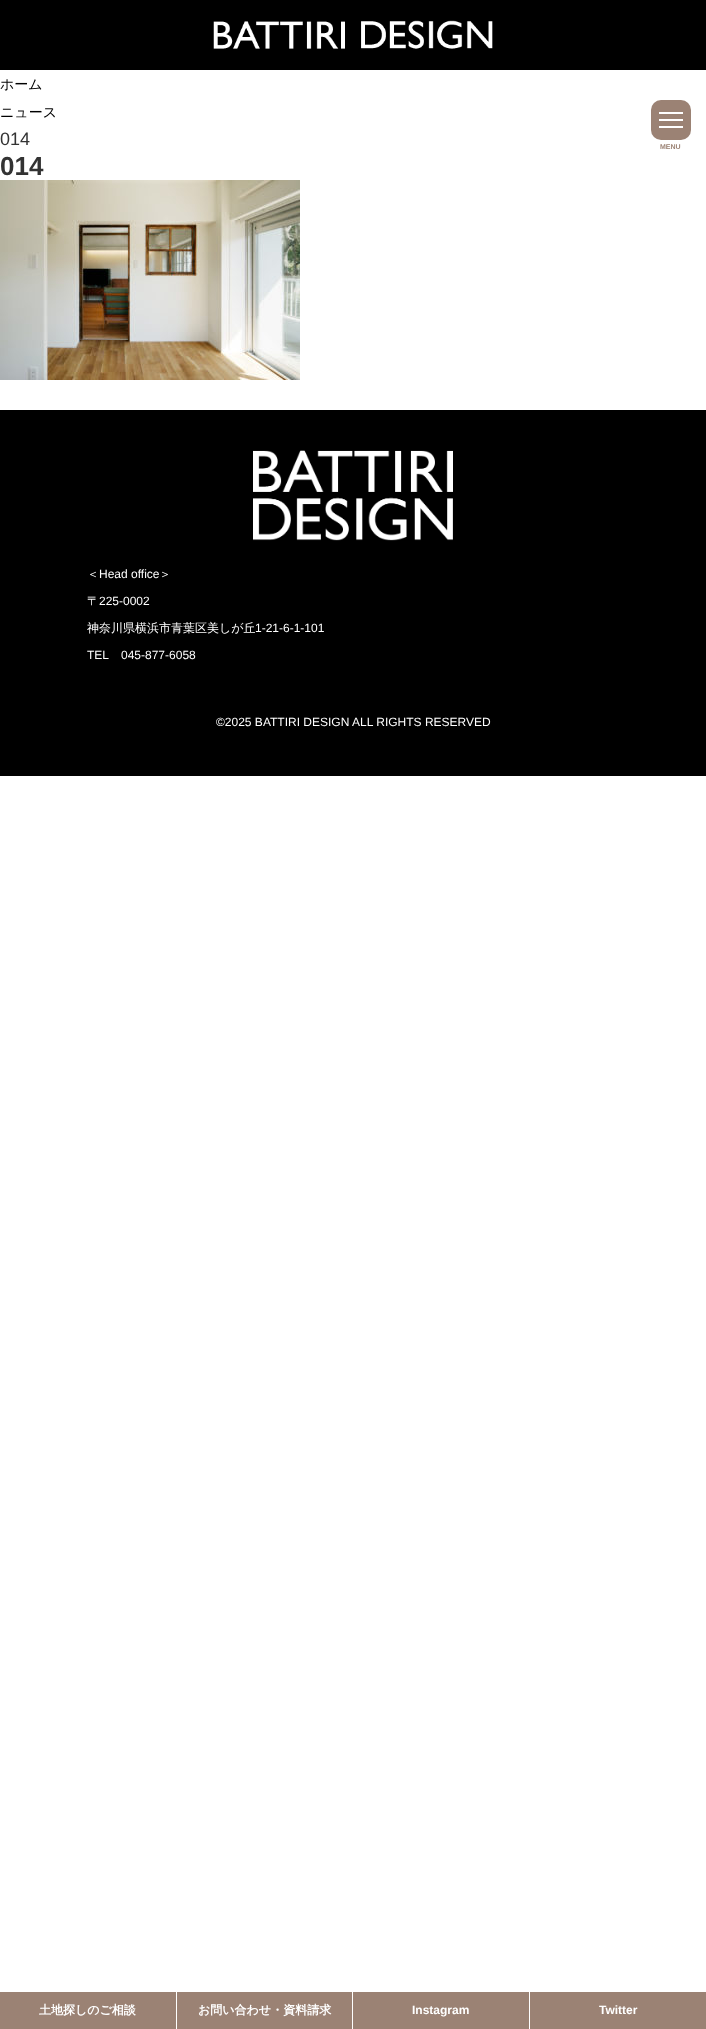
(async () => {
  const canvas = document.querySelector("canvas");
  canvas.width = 706;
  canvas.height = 2029;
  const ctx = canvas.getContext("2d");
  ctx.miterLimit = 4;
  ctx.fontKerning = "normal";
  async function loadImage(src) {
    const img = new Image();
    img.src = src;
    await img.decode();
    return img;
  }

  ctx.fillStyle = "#ffffff";
  ctx.fillRect(0, 0, 706, 2029);
  ctx.drawImage(await loadImage("img/1.png"), 0, 180, 300, 200);
  ctx.fillStyle = "#000000";
  ctx.fillRect(0, 0, 706, 70);
  ctx.drawImage(await loadImage("img/2.png"), 213, 20, 280, 29);
  ctx.fillStyle = "#9b8274";
  ctx.beginPath();
  ctx.roundRect(651, 100, 40, 40, 10);
  ctx.fill();
  for (const [x, y, w, h, color] of [
    [659, 119, 24, 2, "#ffffff"],
    [659, 112, 24, 2, "#ffffff"],
    [659, 126, 24, 2, "#ffffff"],
    [0, 410, 706, 366, "#000000"],
  ]) {
    ctx.fillStyle = color;
    ctx.fillRect(x, y, w, h);
  }
  ctx.drawImage(await loadImage("img/3.png"), 253, 450, 200, 91);
  for (const [x, y, w, h, color] of [
    [0, 1992, 176, 37, "#9b8274"],
    [177, 1992, 175, 37, "#9b8274"],
    [353, 1992, 176, 37, "#9b8274"],
    [530, 1992, 176, 37, "#9b8274"],
  ]) {
    ctx.fillStyle = color;
    ctx.fillRect(x, y, w, h);
  }
  ctx.font = "500 14px WenQuanYi Zen Hei";
  ctx.fillStyle = "#000000";
  ctx.fillText("ホーム", 0, 89);
  ctx.fillText("ニュース", 0, 117);
  ctx.font = "18px Liberation Sans";
  ctx.fillStyle = "#333333";
  ctx.fillText("014", 0, 145);
  ctx.font = "bold 26px Liberation Sans";
  ctx.fillText("014", 0, 175);
  ctx.font = "bold 7px Liberation Sans";
  ctx.fillStyle = "#9b8274";
  ctx.fillText("MENU", 660, 149);
  ctx.font = "500 12px WenQuanYi Zen Hei";
  ctx.fillStyle = "#ffffff";
  ctx.fillText("＜", 87, 578);
  ctx.font = "12px Liberation Sans";
  ctx.fillText("Head office", 99, 578);
  ctx.font = "500 12px WenQuanYi Zen Hei";
  ctx.fillText("＞", 159, 578);
  ctx.fillText("〒", 87, 605);
  ctx.font = "12px Liberation Sans";
  ctx.fillText("225-0002", 99, 605);
  ctx.font = "500 12px WenQuanYi Zen Hei";
  ctx.fillText("神奈川県横浜市青葉区美しが丘", 87, 632);
  ctx.font = "12px Liberation Sans";
  for (const [text, x, y] of [
    ["1-21-6-1-101", 255, 632],
    ["TEL", 87, 659],
    ["045-877-6058", 121, 659],
    ["©2025 BATTIRI DESIGN ALL RIGHTS RESERVED", 216, 726],
  ]) {
    ctx.fillText(text, x, y);
  }
  ctx.font = "bold 12px WenQuanYi Zen Hei";
  ctx.fillText("土地探しのご相談", 39, 2014);
  ctx.fillText("お問い合わせ・資料請求", 198, 2014);
  ctx.font = "bold 12px Liberation Sans";
  ctx.fillText("Instagram", 412, 2014);
  ctx.fillText("Twitter", 599, 2014);
})();
